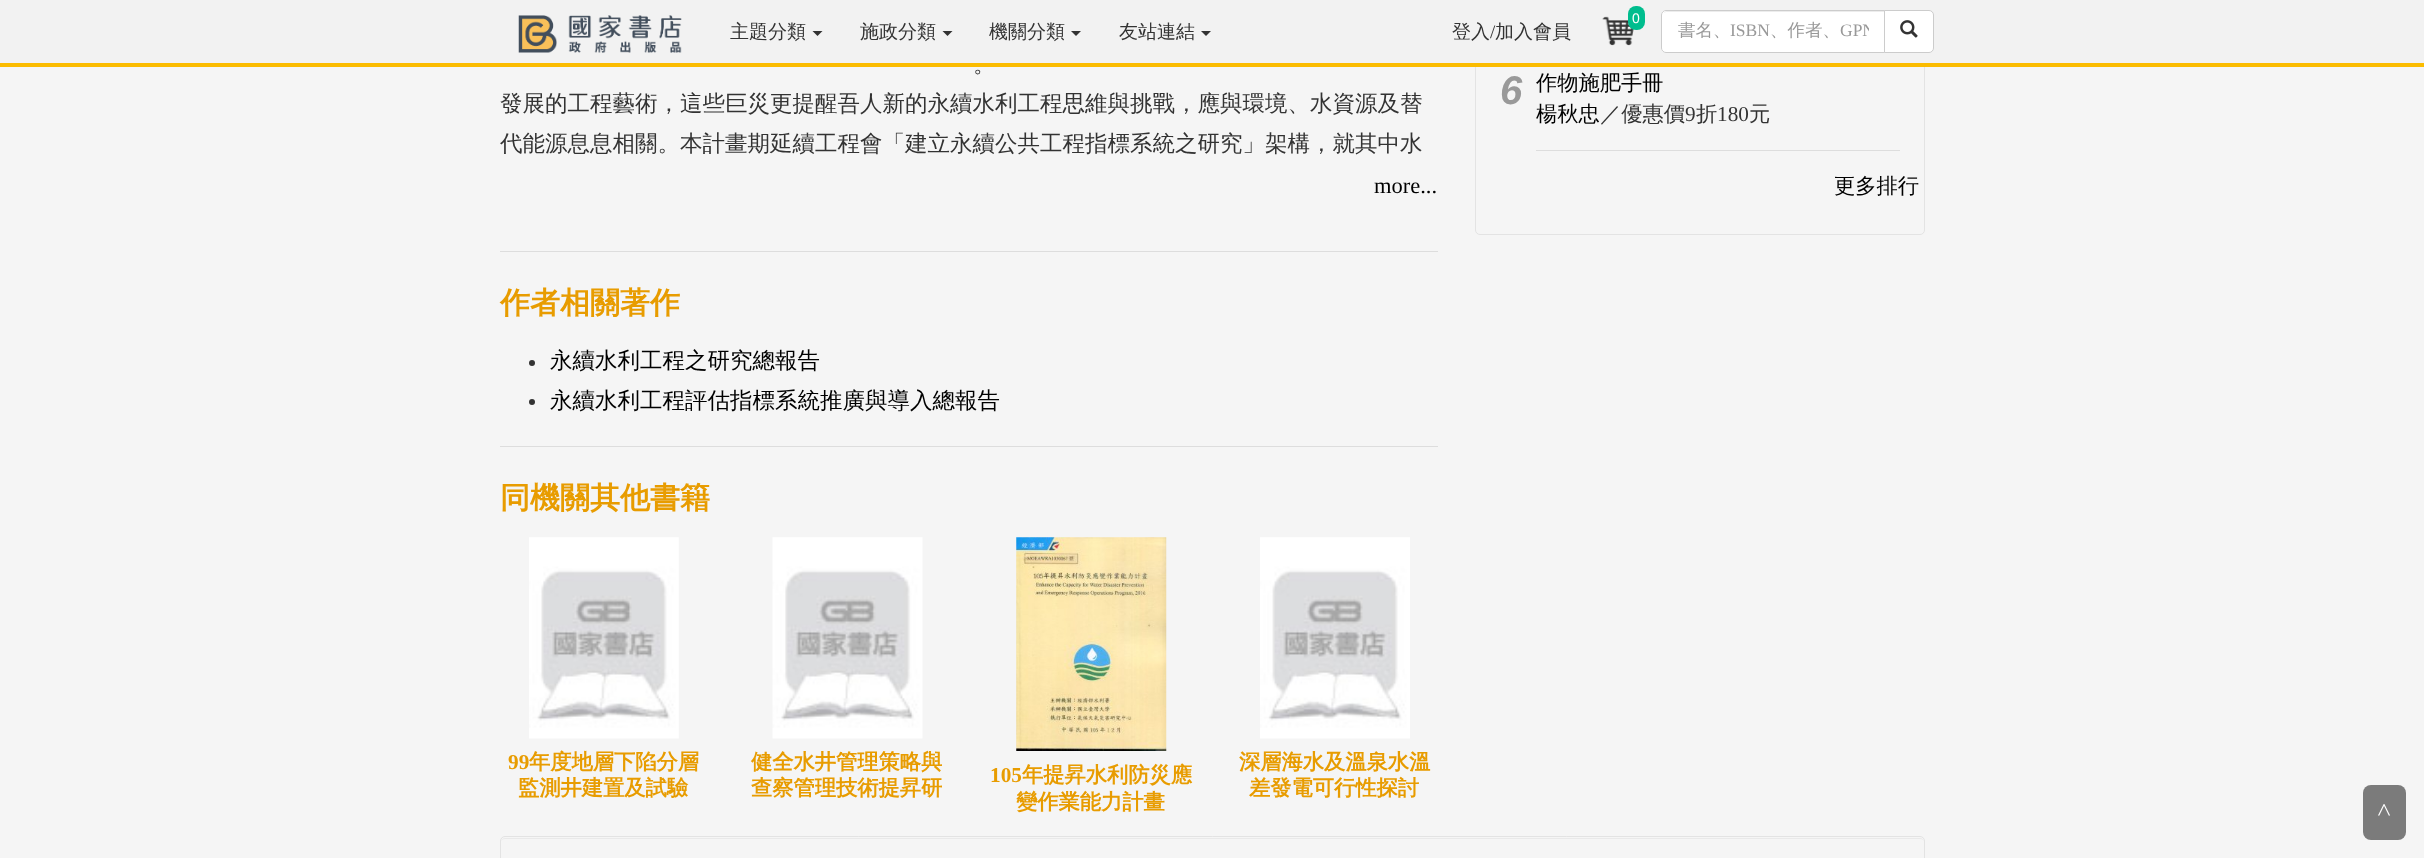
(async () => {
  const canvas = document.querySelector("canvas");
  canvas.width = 2424;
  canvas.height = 858;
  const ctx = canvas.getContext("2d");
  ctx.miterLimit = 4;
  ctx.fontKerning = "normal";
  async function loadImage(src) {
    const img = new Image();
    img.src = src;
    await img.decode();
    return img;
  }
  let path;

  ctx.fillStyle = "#f5f5f5";
  ctx.fillRect(0, 0, 2424, 858);
  ctx.beginPath();
  ctx.roundRect(1475.5, -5.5, 449, 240, 4.5);
  ctx.strokeStyle = "#e3e3e3";
  ctx.stroke();
  ctx.fillStyle = "#f2f2f2";
  ctx.fillRect(0, 0, 2424, 63);
  ctx.fillStyle = "#fbbc00";
  ctx.fillRect(0, 63, 2424, 4);
  ctx.drawImage(await loadImage("img/1.png"), 518, 15, 164, 38);
  ctx.fillStyle = "#333333";
  path = new Path2D("M812.5 31H822.5L817.5 36Z");
  ctx.fill(path);
  path = new Path2D("M942.5 31H952.5L947.5 36Z");
  ctx.fill(path);
  path = new Path2D("M1071 31H1081L1076 36Z");
  ctx.fill(path);
  path = new Path2D("M1201 31H1211L1206 36Z");
  ctx.fill(path);
  ctx.drawImage(await loadImage("img/2.png"), 1602, 16, 32, 30);
  ctx.fillStyle = "#00bd8e";
  ctx.beginPath();
  ctx.roundRect(1628, 6, 17, 24, 8);
  ctx.fill();
  ctx.fillStyle = "#ffffff";
  ctx.beginPath();
  ctx.roundRect(1661, 10, 224, 43, [5, 0, 0, 5]);
  ctx.fill();
  ctx.fillStyle = "#ececec";
  path = new Path2D("M1666 12H1884V11H1667C1666 11 1664 12 1664 13Z");
  ctx.fill(path);
  ctx.beginPath();
  ctx.roundRect(1661.5, 10.5, 223, 42, [4.5, 0, 0, 4.5]);
  ctx.strokeStyle = "#cccccc";
  ctx.stroke();
  ctx.fillStyle = "#ffffff";
  ctx.beginPath();
  ctx.roundRect(1884.5, 10.5, 49, 42, [0, 4.5, 4.5, 0]);
  ctx.fill();
  ctx.stroke();
  ctx.drawImage(await loadImage("img/3.png"), 1900, 20, 18, 18);
  ctx.fillStyle = "#dddddd";
  ctx.fillRect(500, 251, 938, 1);
  ctx.fillStyle = "#333333";
  ctx.beginPath();
  ctx.arc(532, 363, 3, 0, Math.PI * 2);
  ctx.fill();
  ctx.beginPath();
  ctx.arc(532, 402, 3, 0, Math.PI * 2);
  ctx.fill();
  ctx.fillStyle = "#dddddd";
  ctx.fillRect(500, 446, 938, 1);
  ctx.drawImage(await loadImage("img/4.png"), 529, 537, 150, 202);
  ctx.drawImage(await loadImage("img/5.png"), 772, 537, 151, 202);
  ctx.drawImage(await loadImage("img/6.png"), 1016, 537, 151, 214);
  ctx.drawImage(await loadImage("img/7.png"), 1260, 537, 150, 202);
  ctx.fillRect(1536, 150, 364, 1);
  ctx.fillStyle = "#e9e9e9";
  path = new Path2D("M505 839H1920C1922 839 1924 840 1924 842C1924 840 1922 838 1920 838H505C503 838 501 840 501 842C501 840 503 839 505 839Z");
  ctx.fill(path);
  ctx.beginPath();
  ctx.roundRect(500.5, 836.5, 1424, 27, 4.5);
  ctx.strokeStyle = "#e3e3e3";
  ctx.stroke();
  ctx.fillStyle = "#7b7b7b";
  ctx.beginPath();
  ctx.roundRect(2363, 785, 43, 55, 8);
  ctx.fill();
  ctx.font = "500 19px WenQuanYi Zen Hei";
  ctx.fillStyle = "#333333";
  for (const [text, x, y] of [
    ["主題分類", 730, 38],
    ["施政分類", 860, 38],
    ["機關分類", 989, 38],
    ["友站連結", 1119, 38],
  ]) {
    ctx.fillText(text, x, y);
  }
  ctx.font = "14px Liberation Sans";
  ctx.fillStyle = "#ffffff";
  ctx.fillText("0", 1632, 23);
  ctx.font = "500 19px WenQuanYi Zen Hei";
  ctx.fillStyle = "#333333";
  ctx.fillText("登入", 1452, 38);
  ctx.font = "19px Liberation Serif";
  ctx.fillText("/", 1490, 38);
  ctx.font = "500 19px WenQuanYi Zen Hei";
  ctx.fillText("加入會員", 1495, 38);
  ctx.font = "500 17.5px WenQuanYi Zen Hei";
  ctx.fillStyle = "#999999";
  ctx.fillText("書名、", 1678, 36);
  ctx.font = "17.5px Liberation Serif";
  ctx.fillText("ISBN", 1730, 36);
  ctx.font = "500 17.5px WenQuanYi Zen Hei";
  ctx.fillText("、作者、", 1770, 36);
  ctx.save();
  ctx.beginPath();
  ctx.rect(1678, 20, 191, 23);
  ctx.clip();
  ctx.font = "17.5px Liberation Serif";
  ctx.fillText("GPN", 1840, 36);
  ctx.restore();
  ctx.font = "500 22.5px WenQuanYi Zen Hei";
  ctx.fillStyle = "#333333";
  for (const [text, x, y] of [
    ["。", 973, 72],
    ["發展的工程藝術，這些巨災更提醒吾人新的永續水利工程思維與挑戰，應與環境、水資源及替", 500, 111],
    ["代能源息息相關。本計畫期延續工程會「建立永續公共工程指標系統之研究」架構，就其中水", 500, 151],
  ]) {
    ctx.fillText(text, x, y);
  }
  ctx.font = "22.5px Liberation Serif";
  ctx.fillStyle = "#000000";
  ctx.fillText("more...", 1374, 193);
  ctx.font = "bold 30px WenQuanYi Zen Hei";
  ctx.fillStyle = "#e89c00";
  ctx.fillText("作者相關著作", 500, 313);
  ctx.font = "500 22.5px WenQuanYi Zen Hei";
  ctx.fillStyle = "#000000";
  ctx.fillText("永續水利工程之研究總報告", 550, 368);
  ctx.fillText("永續水利工程評估指標系統推廣與導入總報告", 550, 408);
  ctx.font = "bold 30px WenQuanYi Zen Hei";
  ctx.fillStyle = "#e89c00";
  ctx.fillText("同機關其他書籍", 500, 508);
  ctx.font = "bold 21.25px Liberation Serif";
  ctx.fillText("99", 508, 769);
  ctx.font = "bold 21.25px WenQuanYi Zen Hei";
  for (const [text, x, y] of [
    ["年度地層下陷分層", 529, 769],
    ["監測井建置及試驗", 518, 795],
    ["健全水井管理策略與", 751, 769],
    ["查察管理技術提昇研", 751, 795],
  ]) {
    ctx.fillText(text, x, y);
  }
  ctx.font = "bold 21.25px Liberation Serif";
  ctx.fillText("105", 990, 782);
  ctx.font = "bold 21.25px WenQuanYi Zen Hei";
  for (const [text, x, y] of [
    ["年提昇水利防災應", 1022, 782],
    ["變作業能力計畫", 1016, 809],
    ["深層海水及溫泉水溫", 1239, 769],
    ["差發電可行性探討", 1249, 795],
  ]) {
    ctx.fillText(text, x, y);
  }
  ctx.font = "italic bold 40px Liberation Sans";
  ctx.fillStyle = "#999999";
  ctx.fillText("6", 1500, 104);
  ctx.font = "500 21.25px WenQuanYi Zen Hei";
  ctx.fillStyle = "#000000";
  ctx.fillText("作物施肥手冊", 1536, 90);
  ctx.fillText("楊秋忠", 1536, 121);
  ctx.fillStyle = "#333333";
  ctx.fillText("／優惠價", 1600, 121);
  ctx.font = "21.25px Liberation Serif";
  ctx.fillText("9", 1685, 121);
  ctx.font = "500 21.25px WenQuanYi Zen Hei";
  ctx.fillText("折", 1696, 121);
  ctx.font = "21.25px Liberation Serif";
  ctx.fillText("180", 1717, 121);
  ctx.font = "500 21.25px WenQuanYi Zen Hei";
  ctx.fillText("元", 1749, 121);
  ctx.fillStyle = "#000000";
  ctx.fillText("更多排行", 1834, 193);
  ctx.font = "25px Liberation Serif";
  ctx.fillStyle = "#ffffff";
  ctx.fillText("˄", 2377, 818);
})();
